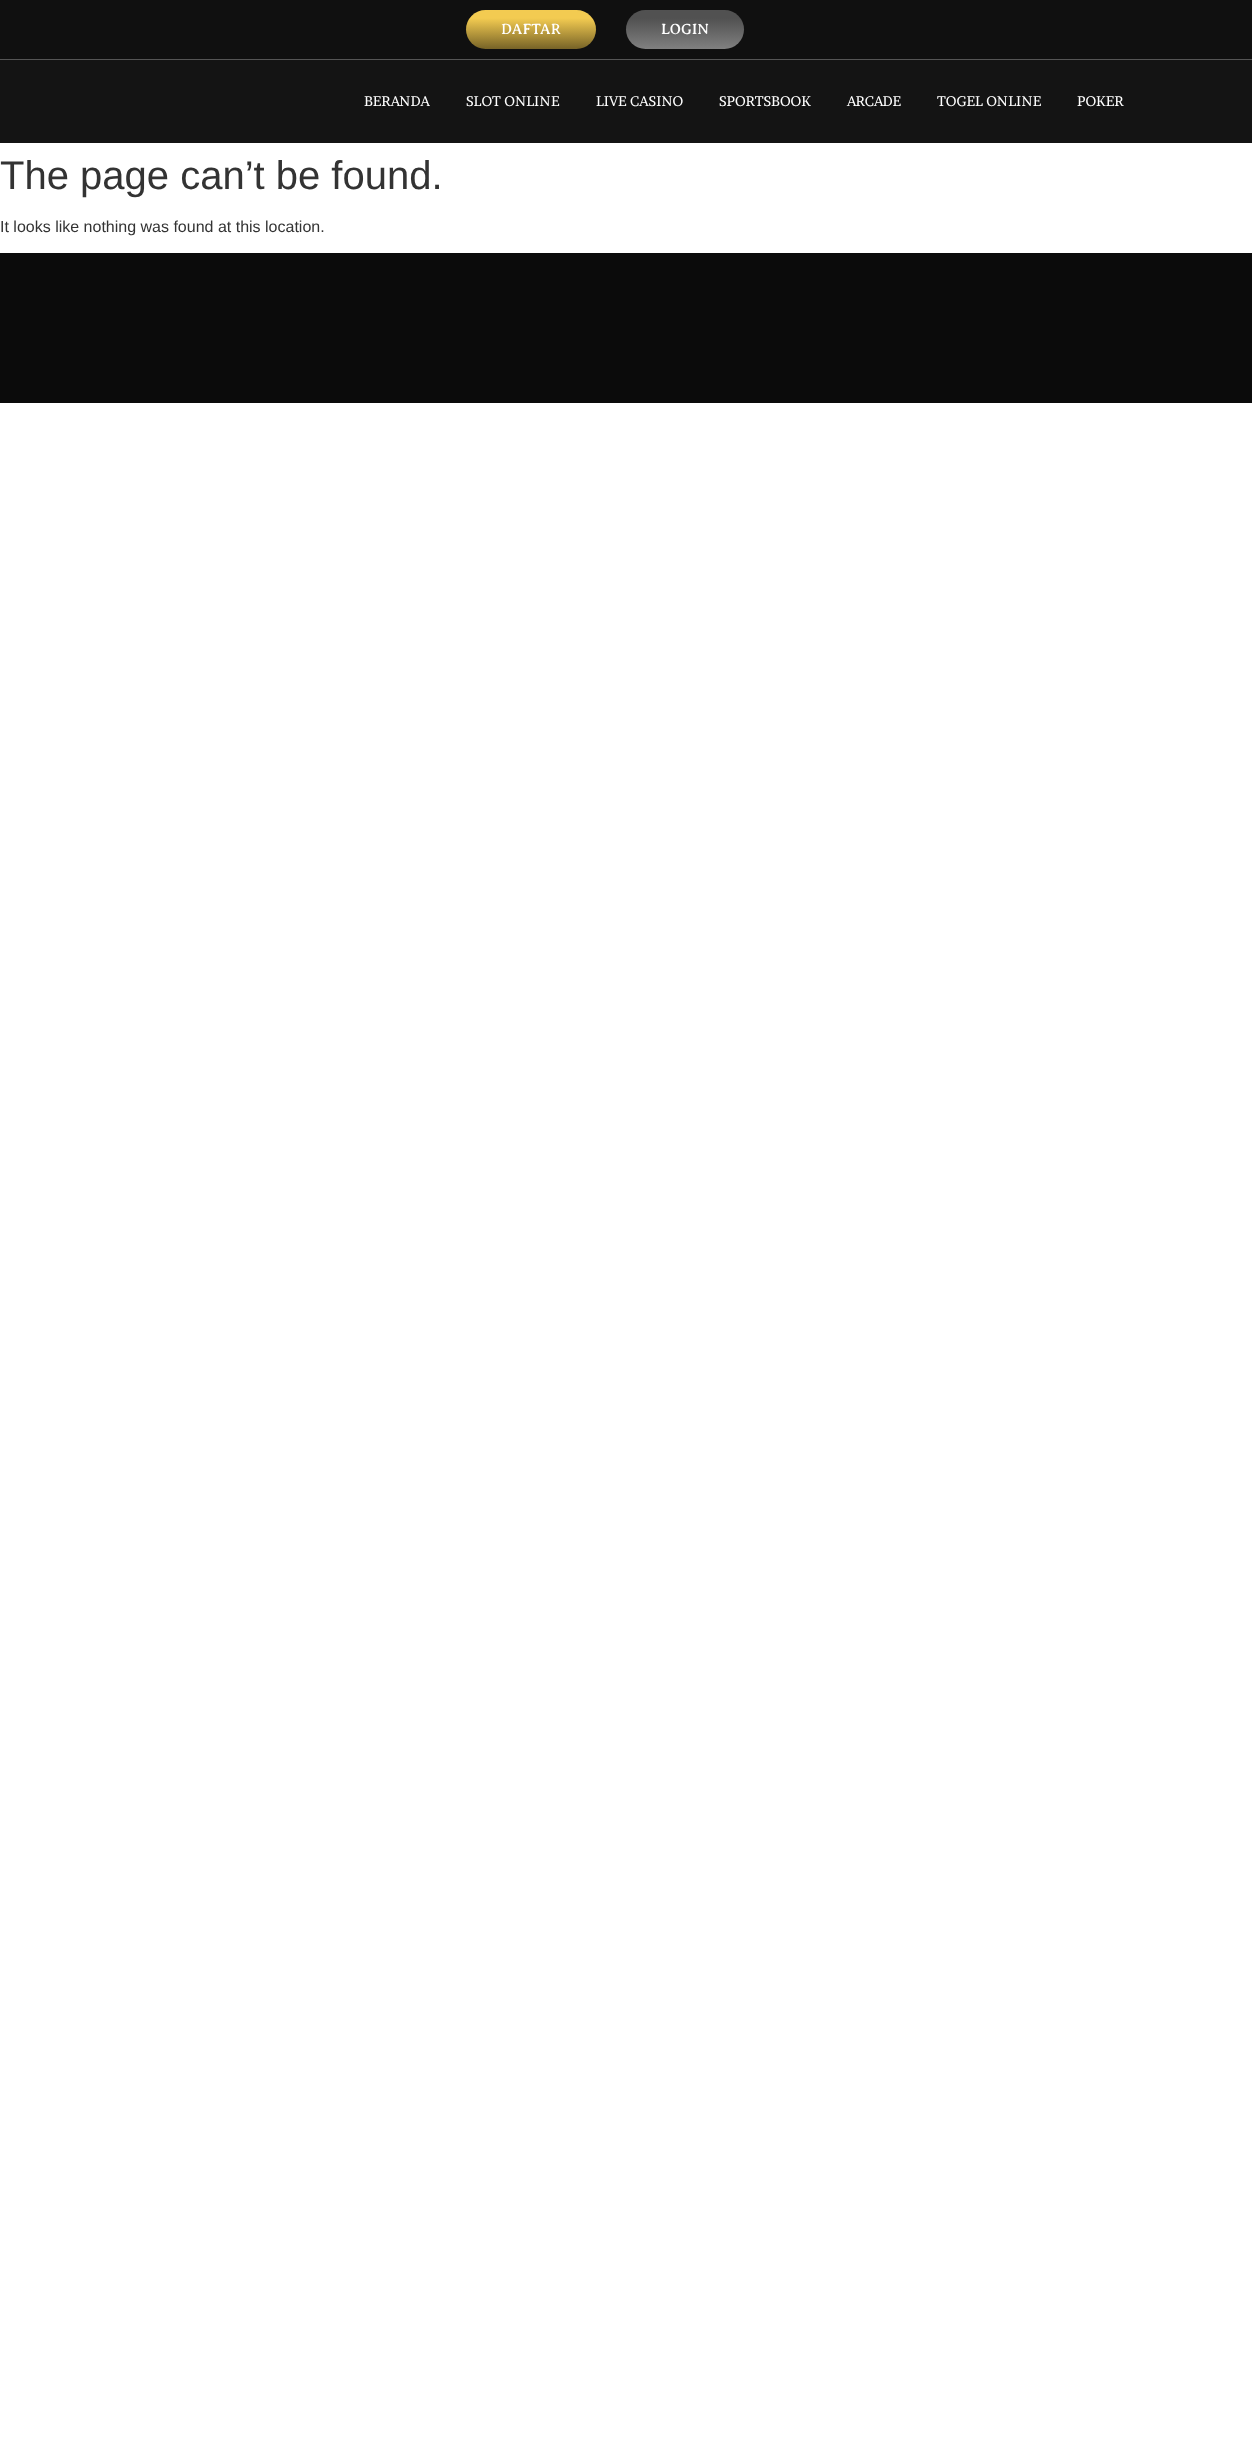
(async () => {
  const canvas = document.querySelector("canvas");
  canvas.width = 1252;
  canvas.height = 2452;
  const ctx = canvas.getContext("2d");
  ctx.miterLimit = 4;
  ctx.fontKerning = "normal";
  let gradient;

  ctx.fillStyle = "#ffffff";
  ctx.fillRect(0, 0, 1252, 2452);
  ctx.fillStyle = "#101010";
  ctx.fillRect(0, 0, 1252, 59);
  ctx.fillStyle = "#555555";
  ctx.fillRect(0, 59, 1252, 1);
  gradient = ctx.createLinearGradient(531, 10, 531, 49);
  gradient.addColorStop(0.21, "#f3cb51");
  gradient.addColorStop(1, "#776327");
  ctx.fillStyle = gradient;
  ctx.beginPath();
  ctx.roundRect(466, 10, 130, 39, 19.5);
  ctx.fill();
  gradient = ctx.createLinearGradient(685, 10, 685, 49);
  gradient.addColorStop(0.21, "#515151");
  gradient.addColorStop(1, "#808080");
  ctx.fillStyle = gradient;
  ctx.beginPath();
  ctx.roundRect(626, 10, 118, 39, 19.5);
  ctx.fill();
  ctx.fillStyle = "#141414";
  ctx.fillRect(0, 60, 1252, 83);
  ctx.fillStyle = "#0b0b0b";
  ctx.fillRect(0, 253, 1252, 150);
  ctx.font = "15px Averia Serif Libre";
  ctx.fillStyle = "#ffffff";
  ctx.fillText("DAFTAR", 501, 34);
  ctx.fillText("LOGIN", 661, 34);
  ctx.font = "14px Brawler";
  for (const [text, x, y] of [
    ["BERANDA", 364, 106],
    ["SLOT ONLINE", 466, 106],
    ["LIVE CASINO", 596, 106],
    ["SPORTSBOOK", 719, 106],
    ["ARCADE", 847, 106],
    ["TOGEL ONLINE", 937, 106],
    ["POKER", 1077, 106],
  ]) {
    ctx.fillText(text, x, y);
  }
  ctx.font = "40px Liberation Sans";
  ctx.fillStyle = "#333333";
  ctx.fillText("The page can’t be found.", 0, 189);
  ctx.font = "16px Liberation Sans";
  ctx.fillText("It looks like nothing was found at this location.", 0, 232);
})();
